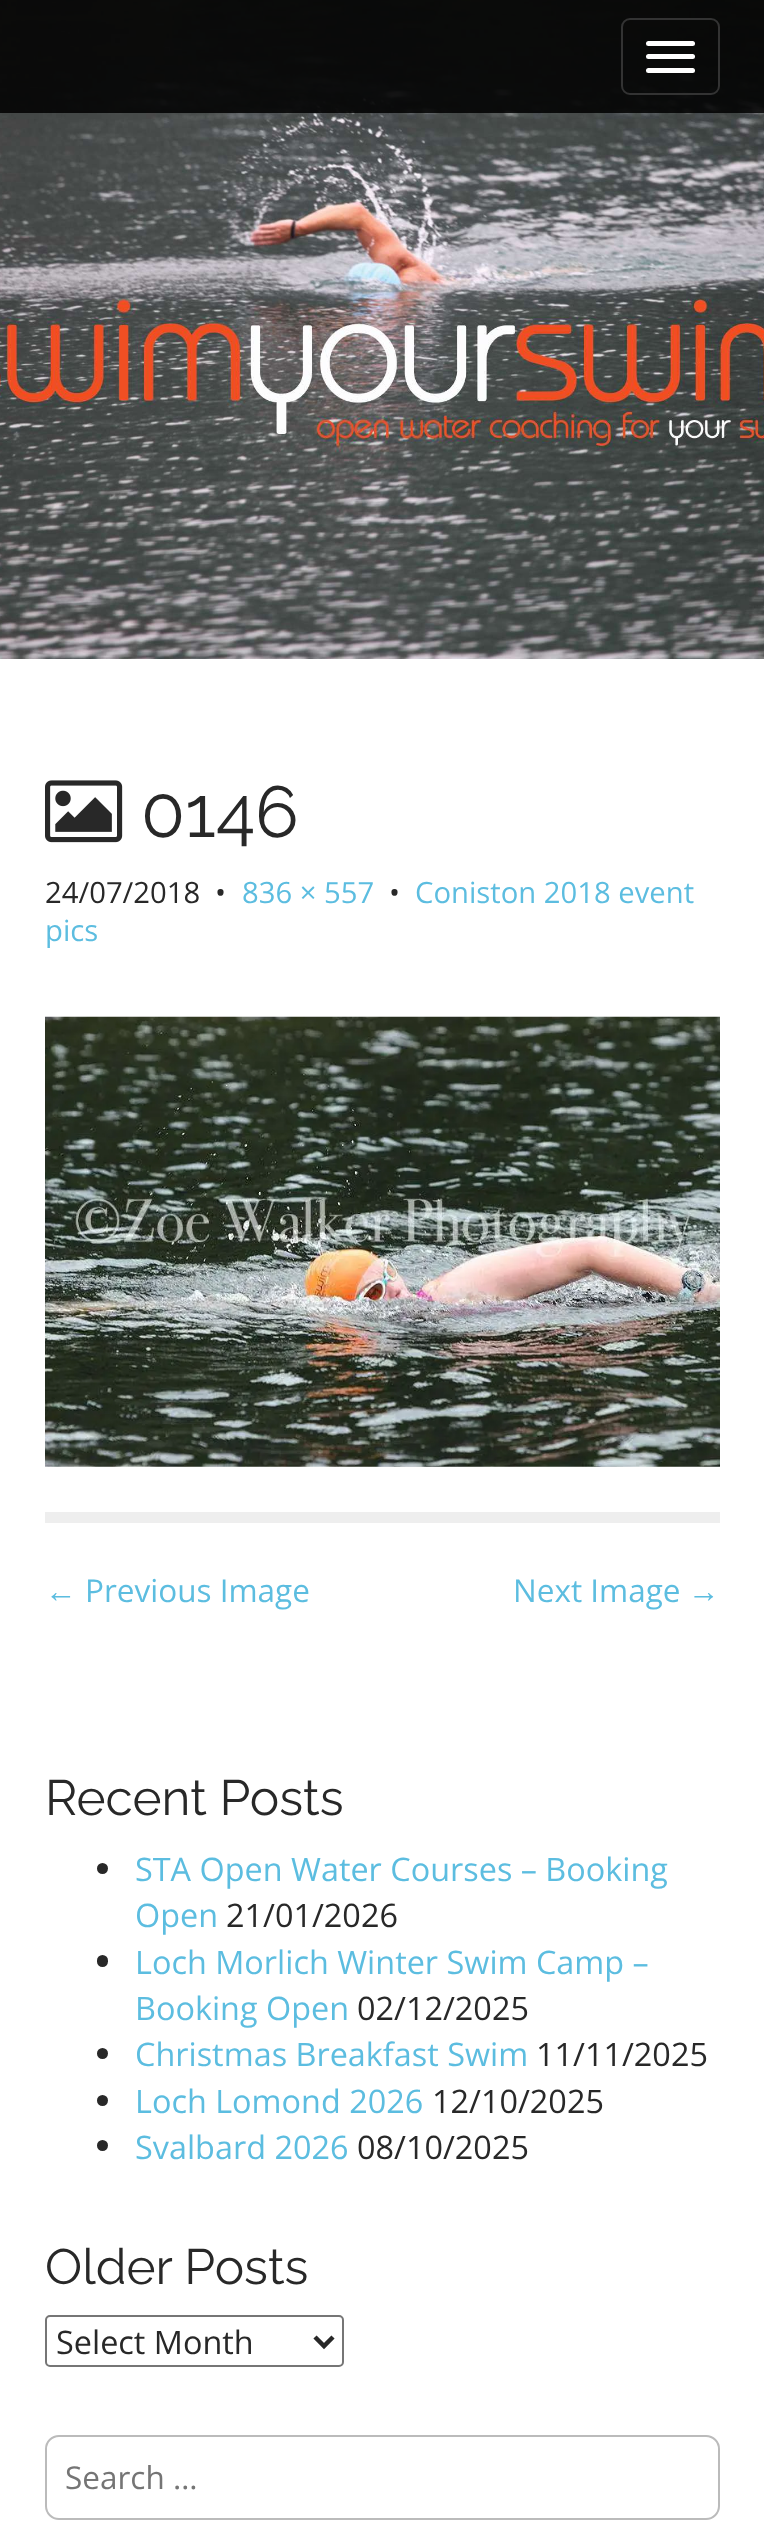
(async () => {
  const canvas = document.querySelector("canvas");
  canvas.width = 764;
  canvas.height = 2522;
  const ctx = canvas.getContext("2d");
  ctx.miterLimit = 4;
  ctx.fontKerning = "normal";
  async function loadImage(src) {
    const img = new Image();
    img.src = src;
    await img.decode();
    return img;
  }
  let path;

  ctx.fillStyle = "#ffffff";
  ctx.fillRect(0, 0, 764, 2522);
  ctx.drawImage(await loadImage("img/1.png"), 0, 0, 764, 659);
  ctx.fillStyle = "rgba(0, 0, 0, 0.85)";
  ctx.fillRect(0, 0, 764, 113);
  ctx.beginPath();
  ctx.roundRect(622, 19, 97, 75, 8);
  ctx.strokeStyle = "#333333";
  ctx.lineWidth = 2;
  ctx.stroke();
  ctx.fillStyle = "#ffffff";
  ctx.beginPath();
  ctx.roundRect(646, 41, 49, 5, 2.5);
  ctx.fill();
  ctx.beginPath();
  ctx.roundRect(646, 54, 49, 5, 2.5);
  ctx.fill();
  ctx.beginPath();
  ctx.roundRect(646, 68, 49, 5, 2.5);
  ctx.fill();
  ctx.fillStyle = "#eeeeee";
  ctx.fillRect(45, 1512, 675, 11);
  ctx.drawImage(await loadImage("img/2.png"), 45, 780, 78, 63);
  ctx.drawImage(await loadImage("img/3.png"), 45, 1016, 675, 451);
  ctx.fillStyle = "#282828";
  ctx.beginPath();
  ctx.arc(102.5, 1868.5, 5.5, 0, Math.PI * 2);
  ctx.fill();
  ctx.beginPath();
  ctx.roundRect(97, 1955, 11, 12, 5.5);
  ctx.fill();
  ctx.beginPath();
  ctx.arc(102.5, 2053.5, 5.5, 0, Math.PI * 2);
  ctx.fill();
  ctx.beginPath();
  ctx.arc(102.5, 2100.5, 5.5, 0, Math.PI * 2);
  ctx.fill();
  ctx.beginPath();
  ctx.arc(102.5, 2145.5, 5.5, 0, Math.PI * 2);
  ctx.fill();
  ctx.beginPath();
  ctx.roundRect(46, 2316, 297, 50, 4);
  ctx.strokeStyle = "#767676";
  ctx.stroke();
  path = new Path2D("M315 2337L324 2346L333 2337");
  ctx.strokeStyle = "#282828";
  ctx.lineWidth = 4.5;
  ctx.stroke(path);
  ctx.beginPath();
  ctx.roundRect(46, 2436, 673, 83, 13);
  ctx.strokeStyle = "#bbbbbb";
  ctx.lineWidth = 2;
  ctx.stroke();
  ctx.font = "100 72px Raleway";
  ctx.fillText("0146", 141, 837);
  ctx.font = "29.25px Open Sans";
  ctx.fillText("24/07/2018", 45, 903);
  ctx.fillText("•", 215, 903);
  ctx.fillStyle = "#5cbde0";
  ctx.fillText("836 × 557", 242, 903);
  ctx.fillStyle = "#282828";
  ctx.fillText("•", 389, 903);
  ctx.fillStyle = "#5cbde0";
  ctx.fillText("Coniston 2018 event", 415, 903);
  ctx.fillText("pics", 45, 941);
  ctx.font = "31.5px Liberation Sans";
  ctx.fillText("←", 45, 1602);
  ctx.font = "31.5px Open Sans";
  ctx.fillText("Previous Image", 85, 1602);
  ctx.fillText("Next Image", 513, 1602);
  ctx.font = "31.5px Liberation Sans";
  ctx.fillText("→", 688, 1602);
  ctx.font = "100 49.5px Raleway";
  ctx.fillStyle = "#282828";
  ctx.fillText("Recent Posts", 45, 1815);
  ctx.font = "32.4px Open Sans";
  ctx.fillStyle = "#5cbde0";
  ctx.fillText("STA Open Water Courses – Booking", 135, 1881);
  ctx.fillText("Open", 135, 1927);
  ctx.fillStyle = "#282828";
  ctx.fillText("21/01/2026", 226, 1927);
  ctx.fillStyle = "#5cbde0";
  ctx.fillText("Loch Morlich Winter Swim Camp –", 135, 1974);
  ctx.fillText("Booking Open", 135, 2020);
  ctx.fillStyle = "#282828";
  ctx.fillText("02/12/2025", 357, 2020);
  ctx.fillStyle = "#5cbde0";
  ctx.fillText("Christmas Breakfast Swim", 135, 2066);
  ctx.fillStyle = "#282828";
  ctx.fillText("11/11/2025", 536, 2066);
  ctx.fillStyle = "#5cbde0";
  ctx.fillText("Loch Lomond 2026", 135, 2113);
  ctx.fillStyle = "#282828";
  ctx.fillText("12/10/2025", 432, 2113);
  ctx.fillStyle = "#5cbde0";
  ctx.fillText("Svalbard 2026", 135, 2159);
  ctx.fillStyle = "#282828";
  ctx.fillText("08/10/2025", 357, 2159);
  ctx.font = "100 49.5px Raleway";
  ctx.fillText("Older Posts", 45, 2284);
  ctx.font = "32.4px Open Sans";
  ctx.fillText("Select Month", 56, 2354);
  ctx.font = "31.5px Open Sans";
  ctx.fillStyle = "#757575";
  ctx.fillText("Search …", 65, 2489);
})();
